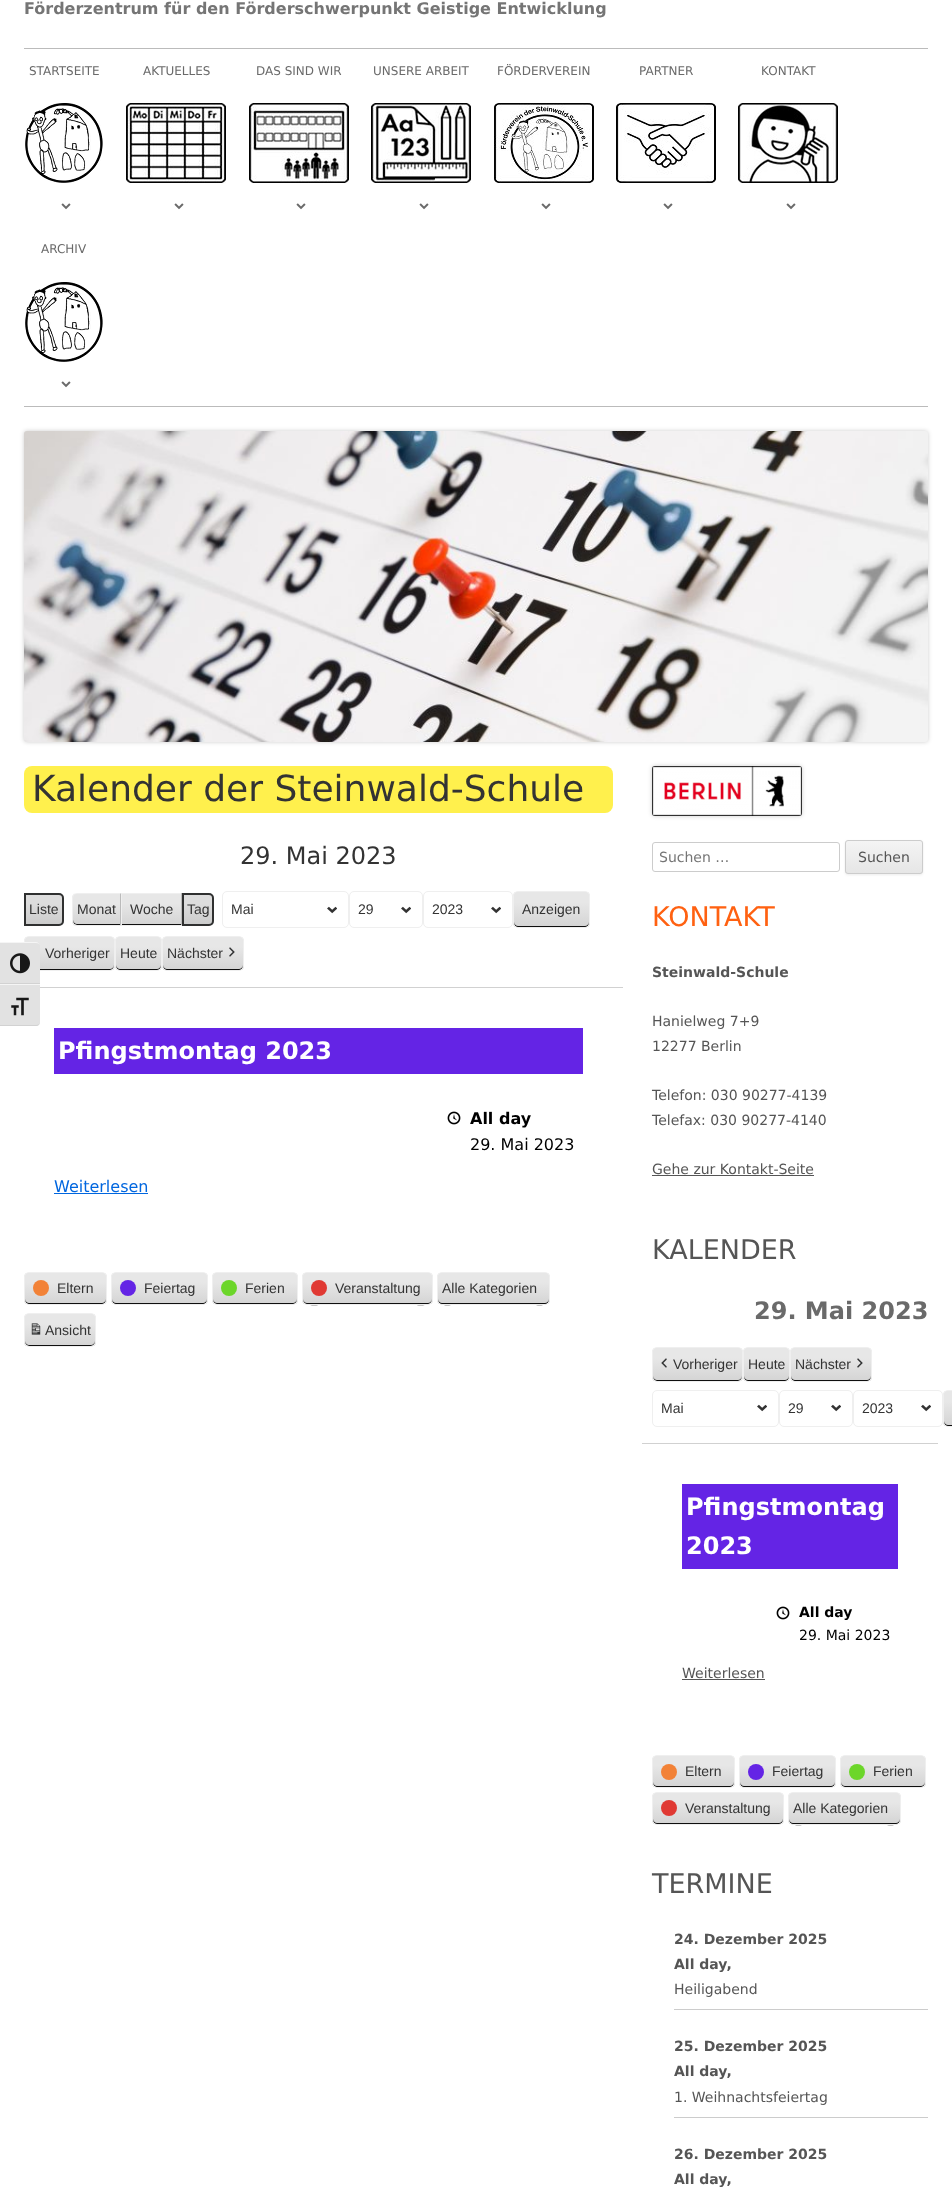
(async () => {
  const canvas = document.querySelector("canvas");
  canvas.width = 952;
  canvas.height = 2190;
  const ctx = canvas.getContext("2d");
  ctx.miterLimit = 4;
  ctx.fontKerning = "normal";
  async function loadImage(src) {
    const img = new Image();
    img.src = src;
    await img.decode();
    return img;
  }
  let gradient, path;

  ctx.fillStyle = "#ffffff";
  ctx.fillRect(0, 0, 952, 2190);
  ctx.save();
  ctx.beginPath();
  ctx.roundRect(24, 936, 91, 35, 5);
  ctx.clip();
  gradient = ctx.createLinearGradient(70, 970, 70, 937);
  gradient.addColorStop(0, "#d4d4d4");
  gradient.addColorStop(0.7, "#e7e7e7");
  ctx.fillStyle = gradient;
  ctx.fillRect(24, 937, 91, 33);
  ctx.restore();
  ctx.fillStyle = "#0f0f0f";
  path = new Path2D("M25 965C25 973 38 970 42 970H96C101 970 114 973 114 965C114 967 112 969 110 969H29C27 969 25 967 25 965Z");
  ctx.fill(path);
  ctx.beginPath();
  ctx.roundRect(24.5, 936.5, 90, 34, 4.5);
  ctx.strokeStyle = "#efefef";
  ctx.stroke();
  ctx.fillStyle = "#e2e2e2";
  ctx.beginPath();
  ctx.roundRect(0, 942, 40, 42, [0, 4, 0, 0]);
  ctx.fill();
  ctx.fillStyle = "#f5f5f5";
  path = new Path2D("M0 942V943H36C38 943 40 944 40 946C40 944 38 942 36 942Z");
  ctx.fill(path);
  ctx.fillStyle = "#d2d2d2";
  ctx.fillRect(0, 983, 40, 1);
  ctx.drawImage(await loadImage("img/1.png"), 10, 953, 20, 21);
  ctx.fillStyle = "#e2e2e2";
  ctx.beginPath();
  ctx.roundRect(0, 984, 40, 42, [0, 0, 4, 0]);
  ctx.fill();
  ctx.fillStyle = "#f5f5f5";
  ctx.fillRect(0, 984, 40, 1);
  ctx.fillStyle = "#d2d2d2";
  path = new Path2D("M0 1025V1026H36C38 1026 40 1024 40 1022C40 1024 38 1025 36 1025Z");
  ctx.fill(path);
  ctx.drawImage(await loadImage("img/2.png"), 11, 997, 18, 19);
  ctx.fillStyle = "#bbbbbb";
  ctx.fillRect(24, 48, 904, 1);
  ctx.fillRect(24, 406, 904, 1);
  ctx.drawImage(await loadImage("img/3.png"), 25, 103, 78, 80);
  ctx.drawImage(await loadImage("img/4.png"), 61, 203, 10, 7);
  ctx.drawImage(await loadImage("img/5.png"), 126, 103, 100, 80);
  ctx.drawImage(await loadImage("img/4.png"), 174, 203, 10, 7);
  ctx.drawImage(await loadImage("img/6.png"), 249, 103, 100, 80);
  ctx.drawImage(await loadImage("img/4.png"), 296, 203, 10, 7);
  ctx.drawImage(await loadImage("img/7.png"), 371, 103, 100, 80);
  ctx.drawImage(await loadImage("img/4.png"), 419, 203, 10, 7);
  ctx.drawImage(await loadImage("img/8.png"), 494, 103, 100, 80);
  ctx.drawImage(await loadImage("img/4.png"), 541, 203, 10, 7);
  ctx.drawImage(await loadImage("img/9.png"), 616, 103, 100, 80);
  ctx.drawImage(await loadImage("img/4.png"), 663, 203, 10, 7);
  ctx.drawImage(await loadImage("img/10.png"), 738, 103, 100, 80);
  ctx.drawImage(await loadImage("img/4.png"), 786, 203, 10, 7);
  ctx.drawImage(await loadImage("img/11.png"), 25, 282, 78, 80);
  ctx.drawImage(await loadImage("img/4.png"), 61, 381, 10, 7);
  ctx.fillStyle = "rgba(0, 0, 0, 0.2)";
  ctx.filter = "blur(2px)";
  ctx.beginPath();
  ctx.roundRect(24, 431, 904, 311, 3);
  ctx.fill();
  ctx.filter = "none";
  ctx.drawImage(await loadImage("img/12.png"), 24, 431, 904, 311);
  ctx.fillStyle = "#fff04d";
  ctx.beginPath();
  ctx.roundRect(24, 766, 589, 47, 8);
  ctx.fill();
  ctx.save();
  ctx.beginPath();
  ctx.roundRect(24, 893, 40, 33, [0, 5, 5, 0]);
  ctx.clip();
  gradient = ctx.createLinearGradient(44, 925, 44, 894);
  gradient.addColorStop(0, "#cbcbcb");
  gradient.addColorStop(0.7, "#dddddd");
  ctx.fillStyle = gradient;
  ctx.fillRect(26, 894, 38, 31);
  ctx.restore();
  ctx.beginPath();
  ctx.roundRect(24.5, 893.5, 39, 32, [0, 4.5, 4.5, 0]);
  ctx.strokeStyle = "#e3e3e3";
  ctx.stroke();
  ctx.beginPath();
  ctx.roundRect(25, 894, 38, 31, [0, 4, 4, 0]);
  ctx.strokeStyle = "#2f3030";
  ctx.lineWidth = 2;
  ctx.stroke();
  ctx.save();
  ctx.beginPath();
  ctx.roundRect(72, 893, 49, 33, [5, 0, 0, 5]);
  ctx.clip();
  gradient = ctx.createLinearGradient(97, 925, 97, 894);
  gradient.addColorStop(0, "#d4d4d4");
  gradient.addColorStop(0.7, "#e7e7e7");
  ctx.fillStyle = gradient;
  ctx.fillRect(72, 894, 48, 31);
  ctx.restore();
  ctx.fillStyle = "#0f0f0f";
  path = new Path2D("M73 920V921C73 923 75 925 77 925H120V924H77C75 924 73 922 73 920Z");
  ctx.fill(path);
  ctx.fillStyle = "#efefef";
  path = new Path2D("M77 893C76 893 74 894 73 894L74 895C75 894 76 894 77 894H120L121 893Z");
  ctx.fill(path);
  ctx.fillStyle = "#bbbbbb";
  path = new Path2D("M121 893L120 894V925L121 926Z");
  ctx.fill(path);
  ctx.fillStyle = "#efefef";
  path = new Path2D("M121 926L120 925H77C76 925 75 924 74 924L73 925C74 926 76 926 77 926Z");
  ctx.fill(path);
  path = new Path2D("M72 898V921C72 922.5 72.5 924 73.5 924.5L74 924C73.5 923 73 922 73 921V898C73 897 73.5 896 74 895L73.5 894.5C72.5 895 72 896.5 72 898Z");
  ctx.fill(path);
  gradient = ctx.createLinearGradient(152, 925, 152, 894);
  gradient.addColorStop(0, "#d4d4d4");
  gradient.addColorStop(0.7, "#e7e7e7");
  ctx.fillStyle = gradient;
  ctx.fillRect(122, 894, 59, 30);
  for (const [x, y, w, h, color] of [
    [122, 924, 59, 1, "#0f0f0f"],
    [121, 893, 61, 1, "#efefef"],
    [181, 893, 1, 33, "#bbbbbb"],
    [121, 925, 61, 1, "#efefef"],
    [121, 893, 1, 33, "#efefef"],
  ]) {
    ctx.fillStyle = color;
    ctx.fillRect(x, y, w, h);
  }
  ctx.save();
  ctx.beginPath();
  ctx.roundRect(182, 893, 32, 33, [0, 5, 5, 0]);
  ctx.clip();
  gradient = ctx.createLinearGradient(198, 925, 198, 894);
  gradient.addColorStop(0, "#cbcbcb");
  gradient.addColorStop(0.7, "#dddddd");
  ctx.fillStyle = gradient;
  ctx.fillRect(184, 894, 30, 31);
  ctx.restore();
  ctx.beginPath();
  ctx.roundRect(182.5, 893.5, 31, 32, [0, 4.5, 4.5, 0]);
  ctx.strokeStyle = "#e3e3e3";
  ctx.lineWidth = 1;
  ctx.stroke();
  ctx.beginPath();
  ctx.roundRect(183, 894, 30, 31, [0, 4, 4, 0]);
  ctx.strokeStyle = "#2f3030";
  ctx.lineWidth = 2;
  ctx.stroke();
  ctx.drawImage(await loadImage("img/13.png"), 327, 906, 10, 8);
  ctx.beginPath();
  ctx.roundRect(222.5, 891.5, 126, 36, 4.5);
  ctx.strokeStyle = "#efefef";
  ctx.lineWidth = 1;
  ctx.stroke();
  ctx.drawImage(await loadImage("img/13.png"), 401, 906, 10, 8);
  ctx.beginPath();
  ctx.roundRect(349.5, 891.5, 73, 36, 4.5);
  ctx.stroke();
  ctx.drawImage(await loadImage("img/13.png"), 491, 906, 10, 8);
  ctx.beginPath();
  ctx.roundRect(423.5, 891.5, 89, 36, 4.5);
  ctx.stroke();
  ctx.save();
  ctx.beginPath();
  ctx.roundRect(513, 891, 77, 37, 5);
  ctx.clip();
  gradient = ctx.createLinearGradient(552, 927, 552, 892);
  gradient.addColorStop(0, "#d4d4d4");
  gradient.addColorStop(0.7, "#e7e7e7");
  ctx.fillStyle = gradient;
  ctx.fillRect(513, 892, 77, 35);
  ctx.restore();
  ctx.fillStyle = "#0f0f0f";
  path = new Path2D("M514 922C514 930 524 927 529 927H574C579 927 589 930 589 922C589 924 587 926 585 926H518C516 926 514 924 514 922Z");
  ctx.fill(path);
  ctx.beginPath();
  ctx.roundRect(513.5, 891.5, 76, 36, 4.5);
  ctx.stroke();
  ctx.save();
  ctx.beginPath();
  ctx.roundRect(115, 936, 47, 35, 5);
  ctx.clip();
  gradient = ctx.createLinearGradient(139, 970, 139, 937);
  gradient.addColorStop(0, "#d4d4d4");
  gradient.addColorStop(0.7, "#e7e7e7");
  ctx.fillStyle = gradient;
  ctx.fillRect(115, 937, 47, 33);
  ctx.restore();
  path = new Path2D("M116 965C116 971 121 970 126 970H151C156 970 161 971 161 965C161 967 159 969 157 969H120C118 969 116 967 116 965Z");
  ctx.fill(path);
  ctx.beginPath();
  ctx.roundRect(115.5, 936.5, 46, 34, 4.5);
  ctx.stroke();
  ctx.save();
  ctx.beginPath();
  ctx.roundRect(162, 936, 82, 35, 5);
  ctx.clip();
  gradient = ctx.createLinearGradient(203, 970, 203, 937);
  gradient.addColorStop(0, "#d4d4d4");
  gradient.addColorStop(0.7, "#e7e7e7");
  ctx.fillStyle = gradient;
  ctx.fillRect(162, 937, 82, 33);
  ctx.restore();
  path = new Path2D("M163 965C163 973 174 970 179 970H227C232 970 243 973 243 965C243 967 241 969 239 969H167C165 969 163 967 163 965Z");
  ctx.fill(path);
  ctx.beginPath();
  ctx.roundRect(162.5, 936.5, 81, 34, 4.5);
  ctx.stroke();
  ctx.drawImage(await loadImage("img/14.png"), 229, 947, 6, 10);
  ctx.fillStyle = "#d1d1d1";
  ctx.fillRect(40, 987, 583, 1);
  ctx.fillStyle = "#6424e5";
  ctx.fillRect(54, 1028, 529, 46);
  ctx.drawImage(await loadImage("img/15.png"), 447, 1111, 14, 14);
  ctx.fillStyle = "#0066df";
  ctx.fillRect(54, 1193, 94, 1);
  ctx.save();
  ctx.beginPath();
  ctx.roundRect(24, 1272, 83, 33, 5);
  ctx.clip();
  gradient = ctx.createLinearGradient(66, 1304, 66, 1273);
  gradient.addColorStop(0, "#d4d4d4");
  gradient.addColorStop(0.7, "#e7e7e7");
  ctx.fillStyle = gradient;
  ctx.fillRect(24, 1273, 83, 31);
  ctx.restore();
  ctx.fillStyle = "#0f0f0f";
  path = new Path2D("M25 1299C25 1307 36 1304 41 1304H90C95 1304 106 1307 106 1299C106 1301 104 1303 102 1303H29C27 1303 25 1301 25 1299Z");
  ctx.fill(path);
  ctx.beginPath();
  ctx.roundRect(24.5, 1272.5, 82, 32, 4.5);
  ctx.stroke();
  ctx.fillStyle = "#f28237";
  ctx.beginPath();
  ctx.arc(41, 1288, 8, 0, Math.PI * 2);
  ctx.fill();
  ctx.save();
  ctx.beginPath();
  ctx.roundRect(111, 1272, 97, 33, 5);
  ctx.clip();
  gradient = ctx.createLinearGradient(160, 1304, 160, 1273);
  gradient.addColorStop(0, "#d4d4d4");
  gradient.addColorStop(0.7, "#e7e7e7");
  ctx.fillStyle = gradient;
  ctx.fillRect(111, 1273, 97, 31);
  ctx.restore();
  ctx.fillStyle = "#0f0f0f";
  path = new Path2D("M112 1299C112 1308 126 1304 130 1304H188C193 1304 207 1308 207 1299C207 1301 205 1303 203 1303H116C114 1303 112 1301 112 1299Z");
  ctx.fill(path);
  ctx.beginPath();
  ctx.roundRect(111.5, 1272.5, 96, 32, 4.5);
  ctx.stroke();
  ctx.fillStyle = "#6424e5";
  ctx.beginPath();
  ctx.arc(128, 1288, 8, 0, Math.PI * 2);
  ctx.fill();
  ctx.save();
  ctx.beginPath();
  ctx.roundRect(212, 1272, 86, 33, 5);
  ctx.clip();
  gradient = ctx.createLinearGradient(255, 1304, 255, 1273);
  gradient.addColorStop(0, "#d4d4d4");
  gradient.addColorStop(0.7, "#e7e7e7");
  ctx.fillStyle = gradient;
  ctx.fillRect(212, 1273, 86, 31);
  ctx.restore();
  ctx.fillStyle = "#0f0f0f";
  path = new Path2D("M213 1299C213 1307 225 1304 230 1304H280C285 1304 297 1307 297 1299C297 1301 295 1303 293 1303H217C215 1303 213 1301 213 1299Z");
  ctx.fill(path);
  ctx.beginPath();
  ctx.roundRect(212.5, 1272.5, 85, 32, 4.5);
  ctx.stroke();
  ctx.fillStyle = "#6cd62a";
  ctx.beginPath();
  ctx.arc(229, 1288, 8, 0, Math.PI * 2);
  ctx.fill();
  ctx.save();
  ctx.beginPath();
  ctx.roundRect(302, 1272, 131, 33, 5);
  ctx.clip();
  gradient = ctx.createLinearGradient(368, 1304, 368, 1273);
  gradient.addColorStop(0, "#d4d4d4");
  gradient.addColorStop(0.7, "#e7e7e7");
  ctx.fillStyle = gradient;
  ctx.fillRect(302, 1273, 131, 31);
  ctx.restore();
  ctx.fillStyle = "#0f0f0f";
  path = new Path2D("M303 1299C303 1309 325 1304 327 1304H408C410 1304 432 1309 432 1299C432 1301 430 1303 428 1303H307C305 1303 303 1301 303 1299Z");
  ctx.fill(path);
  ctx.beginPath();
  ctx.roundRect(302.5, 1272.5, 130, 32, 4.5);
  ctx.stroke();
  ctx.fillStyle = "#e03933";
  ctx.beginPath();
  ctx.arc(319, 1288, 8, 0, Math.PI * 2);
  ctx.fill();
  ctx.save();
  ctx.beginPath();
  ctx.roundRect(437, 1272, 113, 33, 5);
  ctx.clip();
  gradient = ctx.createLinearGradient(494, 1304, 494, 1273);
  gradient.addColorStop(0, "#d4d4d4");
  gradient.addColorStop(0.7, "#e7e7e7");
  ctx.fillStyle = gradient;
  ctx.fillRect(437, 1273, 113, 31);
  ctx.restore();
  ctx.fillStyle = "#0f0f0f";
  path = new Path2D("M438 1299C438 1309 456 1304 459 1304H528C531 1304 549 1309 549 1299C549 1301 547 1303 545 1303H442C440 1303 438 1301 438 1299Z");
  ctx.fill(path);
  ctx.beginPath();
  ctx.roundRect(437.5, 1272.5, 112, 32, 4.5);
  ctx.stroke();
  ctx.save();
  ctx.beginPath();
  ctx.roundRect(24, 1313, 72, 34, 5);
  ctx.clip();
  gradient = ctx.createLinearGradient(60, 1346, 60, 1314);
  gradient.addColorStop(0, "#d4d4d4");
  gradient.addColorStop(0.7, "#e7e7e7");
  ctx.fillStyle = gradient;
  ctx.fillRect(24, 1314, 72, 32);
  ctx.restore();
  path = new Path2D("M25 1341C25 1348 34 1346 39 1346H81C86 1346 95 1348 95 1341C95 1343 93 1345 91 1345H29C27 1345 25 1343 25 1341Z");
  ctx.fill(path);
  ctx.beginPath();
  ctx.roundRect(24.5, 1313.5, 71, 33, 4.5);
  ctx.stroke();
  ctx.drawImage(await loadImage("img/16.png"), 31, 1323, 10, 12);
  ctx.fillStyle = "rgba(0, 0, 0, 0.2)";
  ctx.filter = "blur(2px)";
  ctx.beginPath();
  ctx.roundRect(652, 766, 150, 50, 3);
  ctx.fill();
  ctx.filter = "none";
  ctx.drawImage(await loadImage("img/17.png"), 652, 766, 150, 50);
  ctx.beginPath();
  ctx.roundRect(652.5, 842.5, 187, 29, 2.5);
  ctx.strokeStyle = "#cccccc";
  ctx.stroke();
  ctx.fillStyle = "rgba(64, 64, 64, 0.1)";
  ctx.filter = "blur(1px)";
  ctx.beginPath();
  ctx.roundRect(845, 841, 78, 34, 3);
  ctx.fill();
  ctx.filter = "none";
  ctx.save();
  ctx.beginPath();
  ctx.roundRect(845, 840, 78, 34, 3);
  ctx.clip();
  gradient = ctx.createLinearGradient(884, 841, 884, 873);
  gradient.addColorStop(0, "#f4f4f4");
  gradient.addColorStop(1, "#e6e6e6");
  ctx.fillStyle = gradient;
  ctx.fillRect(845, 841, 78, 32);
  ctx.restore();
  ctx.beginPath();
  ctx.roundRect(845.5, 840.5, 77, 33, 2.5);
  ctx.stroke();
  ctx.fillStyle = "#555555";
  ctx.fillRect(652, 1175, 162, 1);
  ctx.save();
  ctx.beginPath();
  ctx.roundRect(652, 1347, 91, 35, 5);
  ctx.clip();
  gradient = ctx.createLinearGradient(698, 1381, 698, 1348);
  gradient.addColorStop(0, "#d4d4d4");
  gradient.addColorStop(0.7, "#e7e7e7");
  ctx.fillStyle = gradient;
  ctx.fillRect(652, 1348, 91, 33);
  ctx.restore();
  ctx.fillStyle = "#0f0f0f";
  path = new Path2D("M653 1376C653 1384 666 1381 670 1381H724C729 1381 742 1384 742 1376C742 1378 740 1380 738 1380H657C655 1380 653 1378 653 1376Z");
  ctx.fill(path);
  ctx.beginPath();
  ctx.roundRect(652.5, 1347.5, 90, 34, 4.5);
  ctx.strokeStyle = "#efefef";
  ctx.stroke();
  ctx.drawImage(await loadImage("img/18.png"), 661, 1358, 6, 10);
  ctx.save();
  ctx.beginPath();
  ctx.roundRect(743, 1347, 47, 35, 5);
  ctx.clip();
  gradient = ctx.createLinearGradient(767, 1381, 767, 1348);
  gradient.addColorStop(0, "#d4d4d4");
  gradient.addColorStop(0.7, "#e7e7e7");
  ctx.fillStyle = gradient;
  ctx.fillRect(743, 1348, 47, 33);
  ctx.restore();
  path = new Path2D("M744 1376C744 1382 749 1381 754 1381H779C784 1381 789 1382 789 1376C789 1378 787 1380 785 1380H748C746 1380 744 1378 744 1376Z");
  ctx.fill(path);
  ctx.beginPath();
  ctx.roundRect(743.5, 1347.5, 46, 34, 4.5);
  ctx.stroke();
  ctx.save();
  ctx.beginPath();
  ctx.roundRect(790, 1347, 82, 35, 5);
  ctx.clip();
  gradient = ctx.createLinearGradient(831, 1381, 831, 1348);
  gradient.addColorStop(0, "#d4d4d4");
  gradient.addColorStop(0.7, "#e7e7e7");
  ctx.fillStyle = gradient;
  ctx.fillRect(790, 1348, 82, 33);
  ctx.restore();
  path = new Path2D("M791 1376C791 1384 802 1381 807 1381H855C860 1381 871 1384 871 1376C871 1378 869 1380 867 1380H795C793 1380 791 1378 791 1376Z");
  ctx.fill(path);
  ctx.beginPath();
  ctx.roundRect(790.5, 1347.5, 81, 34, 4.5);
  ctx.stroke();
  ctx.drawImage(await loadImage("img/14.png"), 857, 1358, 6, 10);
  ctx.drawImage(await loadImage("img/13.png"), 757, 1404, 10, 8);
  ctx.beginPath();
  ctx.roundRect(652.5, 1390.5, 126, 36, 4.5);
  ctx.stroke();
  ctx.drawImage(await loadImage("img/13.png"), 831, 1404, 10, 8);
  ctx.beginPath();
  ctx.roundRect(779.5, 1390.5, 73, 36, 4.5);
  ctx.stroke();
  ctx.drawImage(await loadImage("img/13.png"), 921, 1404, 10, 8);
  ctx.beginPath();
  ctx.roundRect(853.5, 1390.5, 89, 36, 4.5);
  ctx.stroke();
  ctx.save();
  ctx.beginPath();
  ctx.roundRect(943, 1390, 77, 37, 5);
  ctx.clip();
  gradient = ctx.createLinearGradient(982, 1426, 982, 1391);
  gradient.addColorStop(0, "#d4d4d4");
  gradient.addColorStop(0.7, "#e7e7e7");
  ctx.fillStyle = gradient;
  ctx.fillRect(943, 1391, 9, 35);
  ctx.restore();
  path = new Path2D("M944 1421C944 1429 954 1426 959 1426H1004C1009 1426 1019 1429 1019 1421C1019 1423 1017 1425 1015 1425H948C946 1425 944 1423 944 1421Z");
  ctx.fill(path);
  ctx.beginPath();
  ctx.roundRect(943.5, 1390.5, 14, 36, 4.5);
  ctx.stroke();
  ctx.fillStyle = "#d1d1d1";
  ctx.fillRect(642, 1443, 296, 1);
  ctx.fillStyle = "#6424e5";
  ctx.fillRect(682, 1484, 216, 85);
  ctx.drawImage(await loadImage("img/15.png"), 776, 1606, 14, 14);
  ctx.fillStyle = "#555555";
  ctx.fillRect(682, 1679, 83, 1);
  ctx.save();
  ctx.beginPath();
  ctx.roundRect(652, 1755, 83, 33, 5);
  ctx.clip();
  gradient = ctx.createLinearGradient(694, 1787, 694, 1756);
  gradient.addColorStop(0, "#d4d4d4");
  gradient.addColorStop(0.7, "#e7e7e7");
  ctx.fillStyle = gradient;
  ctx.fillRect(652, 1756, 83, 31);
  ctx.restore();
  ctx.fillStyle = "#0f0f0f";
  path = new Path2D("M653 1782C653 1790 664 1787 669 1787H718C723 1787 734 1790 734 1782C734 1784 732 1786 730 1786H657C655 1786 653 1784 653 1782Z");
  ctx.fill(path);
  ctx.beginPath();
  ctx.roundRect(652.5, 1755.5, 82, 32, 4.5);
  ctx.stroke();
  ctx.fillStyle = "#f28237";
  ctx.beginPath();
  ctx.arc(669, 1772, 8, 0, Math.PI * 2);
  ctx.fill();
  ctx.save();
  ctx.beginPath();
  ctx.roundRect(739, 1755, 97, 33, 5);
  ctx.clip();
  gradient = ctx.createLinearGradient(788, 1787, 788, 1756);
  gradient.addColorStop(0, "#d4d4d4");
  gradient.addColorStop(0.7, "#e7e7e7");
  ctx.fillStyle = gradient;
  ctx.fillRect(739, 1756, 97, 31);
  ctx.restore();
  ctx.fillStyle = "#0f0f0f";
  path = new Path2D("M740 1782C740 1791 754 1787 758 1787H816C821 1787 835 1791 835 1782C835 1784 833 1786 831 1786H744C742 1786 740 1784 740 1782Z");
  ctx.fill(path);
  ctx.beginPath();
  ctx.roundRect(739.5, 1755.5, 96, 32, 4.5);
  ctx.stroke();
  ctx.fillStyle = "#6424e5";
  ctx.beginPath();
  ctx.arc(756, 1772, 8, 0, Math.PI * 2);
  ctx.fill();
  ctx.save();
  ctx.beginPath();
  ctx.roundRect(840, 1755, 86, 33, 5);
  ctx.clip();
  gradient = ctx.createLinearGradient(883, 1787, 883, 1756);
  gradient.addColorStop(0, "#d4d4d4");
  gradient.addColorStop(0.7, "#e7e7e7");
  ctx.fillStyle = gradient;
  ctx.fillRect(840, 1756, 86, 31);
  ctx.restore();
  ctx.fillStyle = "#0f0f0f";
  path = new Path2D("M841 1782C841 1790 853 1787 858 1787H908C913 1787 925 1790 925 1782C925 1784 923 1786 921 1786H845C843 1786 841 1784 841 1782Z");
  ctx.fill(path);
  ctx.beginPath();
  ctx.roundRect(840.5, 1755.5, 85, 32, 4.5);
  ctx.stroke();
  ctx.fillStyle = "#6cd62a";
  ctx.beginPath();
  ctx.arc(857, 1772, 8, 0, Math.PI * 2);
  ctx.fill();
  ctx.save();
  ctx.beginPath();
  ctx.roundRect(652, 1792, 132, 33, 5);
  ctx.clip();
  gradient = ctx.createLinearGradient(718, 1824, 718, 1793);
  gradient.addColorStop(0, "#d4d4d4");
  gradient.addColorStop(0.7, "#e7e7e7");
  ctx.fillStyle = gradient;
  ctx.fillRect(652, 1793, 132, 31);
  ctx.restore();
  ctx.fillStyle = "#0f0f0f";
  path = new Path2D("M653 1819V1820C653 1822 655 1824 657 1824H779C781 1824 783 1822 783 1820V1819C783 1821 781 1823 779 1823H657C655 1823 653 1821 653 1819Z");
  ctx.fill(path);
  ctx.beginPath();
  ctx.roundRect(652.5, 1792.5, 131, 32, 4.5);
  ctx.stroke();
  ctx.fillStyle = "#e03933";
  ctx.beginPath();
  ctx.arc(669, 1808, 8, 0, Math.PI * 2);
  ctx.fill();
  ctx.save();
  ctx.beginPath();
  ctx.roundRect(788, 1792, 113, 33, 5);
  ctx.clip();
  gradient = ctx.createLinearGradient(845, 1824, 845, 1793);
  gradient.addColorStop(0, "#d4d4d4");
  gradient.addColorStop(0.7, "#e7e7e7");
  ctx.fillStyle = gradient;
  ctx.fillRect(788, 1793, 113, 31);
  ctx.restore();
  ctx.fillStyle = "#0f0f0f";
  path = new Path2D("M789 1819C789 1829 807 1824 810 1824H879C882 1824 900 1829 900 1819C900 1821 898 1823 896 1823H793C791 1823 789 1821 789 1819Z");
  ctx.fill(path);
  ctx.beginPath();
  ctx.roundRect(788.5, 1792.5, 112, 32, 4.5);
  ctx.stroke();
  ctx.fillStyle = "#cccccc";
  ctx.fillRect(674, 2009, 254, 1);
  ctx.fillRect(674, 2117, 254, 1);
  ctx.font = "bold 16px DejaVu Sans";
  ctx.fillStyle = "#757575";
  ctx.fillText("Förderzentrum für den Förderschwerpunkt Geistige Entwicklung", 24, 14);
  ctx.font = "12px DejaVu Sans";
  ctx.fillStyle = "#6a6a6a";
  for (const [text, x, y] of [
    ["STARTSEITE", 29, 75],
    ["AKTUELLES", 143, 75],
    ["DAS SIND WIR", 256, 75],
    ["UNSERE ARBEIT", 373, 75],
    ["FÖRDERVEREIN", 497, 75],
    ["PARTNER", 639, 75],
    ["KONTAKT", 761, 75],
    ["ARCHIV", 41, 253],
  ]) {
    ctx.fillText(text, x, y);
  }
  ctx.font = "36px DejaVu Sans";
  ctx.fillStyle = "#333333";
  ctx.fillText("Kalender der Steinwald-Schule", 32, 801);
  ctx.font = "24px DejaVu Sans";
  ctx.fillText("29. Mai 2023", 240, 864);
  ctx.font = "14px Liberation Sans";
  for (const [text, x, y] of [
    ["Liste", 29, 914],
    ["Monat", 77, 914],
    ["Woche", 130, 914],
    ["Tag", 187, 914],
    ["Mai", 231, 914],
    ["29", 358, 914],
    ["2023", 432, 914],
    ["Anzeigen", 522, 914],
    ["Vorheriger", 45, 958],
    ["Heute", 120, 958],
    ["Nächster", 167, 958],
  ]) {
    ctx.fillText(text, x, y);
  }
  ctx.font = "bold 24px DejaVu Sans";
  ctx.fillStyle = "#ffffff";
  ctx.fillText("Pfingstmontag 2023", 58, 1059);
  ctx.font = "bold 16px DejaVu Sans";
  ctx.fillStyle = "#000000";
  ctx.fillText("All day", 470, 1124);
  ctx.font = "16px DejaVu Sans";
  ctx.fillText("29. Mai 2023", 470, 1150);
  ctx.fillStyle = "#0066df";
  ctx.fillText("Weiterlesen", 54, 1192);
  ctx.font = "14px Liberation Sans";
  ctx.fillStyle = "#333333";
  for (const [text, x, y] of [
    ["Eltern", 57, 1293],
    ["Feiertag", 144, 1293],
    ["Ferien", 245, 1293],
    ["Veranstaltung", 335, 1293],
    ["Alle Kategorien", 442, 1293],
    ["Ansicht", 45, 1335],
  ]) {
    ctx.fillText(text, x, y);
  }
  ctx.font = "14px DejaVu Sans";
  ctx.fillStyle = "#757575";
  ctx.fillText("Suchen …", 659, 862);
  ctx.fillStyle = "#555555";
  ctx.fillText("Suchen", 858, 862);
  ctx.font = "27px DejaVu Sans";
  ctx.fillStyle = "#ff6111";
  ctx.fillText("KONTAKT", 652, 926);
  ctx.font = "bold 14px DejaVu Sans";
  ctx.fillStyle = "#555555";
  ctx.fillText("Steinwald-Schule", 652, 977);
  ctx.font = "14px DejaVu Sans";
  for (const [text, x, y] of [
    ["Hanielweg 7+9", 652, 1026],
    ["12277 Berlin", 652, 1051],
    ["Telefon: 030 90277-4139", 652, 1100],
    ["Telefax: 030 90277-4140", 652, 1125],
    ["Gehe zur Kontakt-Seite", 652, 1174],
  ]) {
    ctx.fillText(text, x, y);
  }
  ctx.font = "27px DejaVu Sans";
  ctx.fillText("KALENDER", 652, 1259);
  ctx.font = "bold 24px DejaVu Sans";
  ctx.fillStyle = "#6a6a6a";
  ctx.fillText("29. Mai 2023", 754, 1319);
  ctx.font = "14px Liberation Sans";
  ctx.fillStyle = "#333333";
  for (const [text, x, y] of [
    ["Vorheriger", 673, 1369],
    ["Heute", 748, 1369],
    ["Nächster", 795, 1369],
    ["Mai", 661, 1413],
    ["29", 788, 1413],
    ["2023", 862, 1413],
  ]) {
    ctx.fillText(text, x, y);
  }
  ctx.font = "bold 24px DejaVu Sans";
  ctx.fillStyle = "#ffffff";
  ctx.fillText("Pfingstmontag", 686, 1515);
  ctx.fillText("2023", 686, 1554);
  ctx.font = "bold 14px DejaVu Sans";
  ctx.fillStyle = "#000000";
  ctx.fillText("All day", 799, 1617);
  ctx.font = "14px DejaVu Sans";
  ctx.fillText("29. Mai 2023", 799, 1640);
  ctx.fillStyle = "#555555";
  ctx.fillText("Weiterlesen", 682, 1678);
  ctx.font = "14px Liberation Sans";
  ctx.fillStyle = "#333333";
  for (const [text, x, y] of [
    ["Eltern", 685, 1776],
    ["Feiertag", 772, 1776],
    ["Ferien", 873, 1776],
    ["Veranstaltung", 685, 1813],
    ["Alle Kategorien", 793, 1813],
  ]) {
    ctx.fillText(text, x, y);
  }
  ctx.font = "27px DejaVu Sans";
  ctx.fillStyle = "#555555";
  ctx.fillText("TERMINE", 652, 1893);
  ctx.font = "bold 14px DejaVu Sans";
  ctx.fillText("24. Dezember 2025", 674, 1944);
  ctx.fillText("All day,", 674, 1969);
  ctx.font = "14px DejaVu Sans";
  ctx.fillText("Heiligabend", 674, 1994);
  ctx.font = "bold 14px DejaVu Sans";
  ctx.fillText("25. Dezember 2025", 674, 2051);
  ctx.fillText("All day,", 674, 2076);
  ctx.font = "14px DejaVu Sans";
  ctx.fillText("1. Weihnachtsfeiertag", 674, 2102);
  ctx.font = "bold 14px DejaVu Sans";
  ctx.fillText("26. Dezember 2025", 674, 2159);
  ctx.fillText("All day,", 674, 2184);
})();
